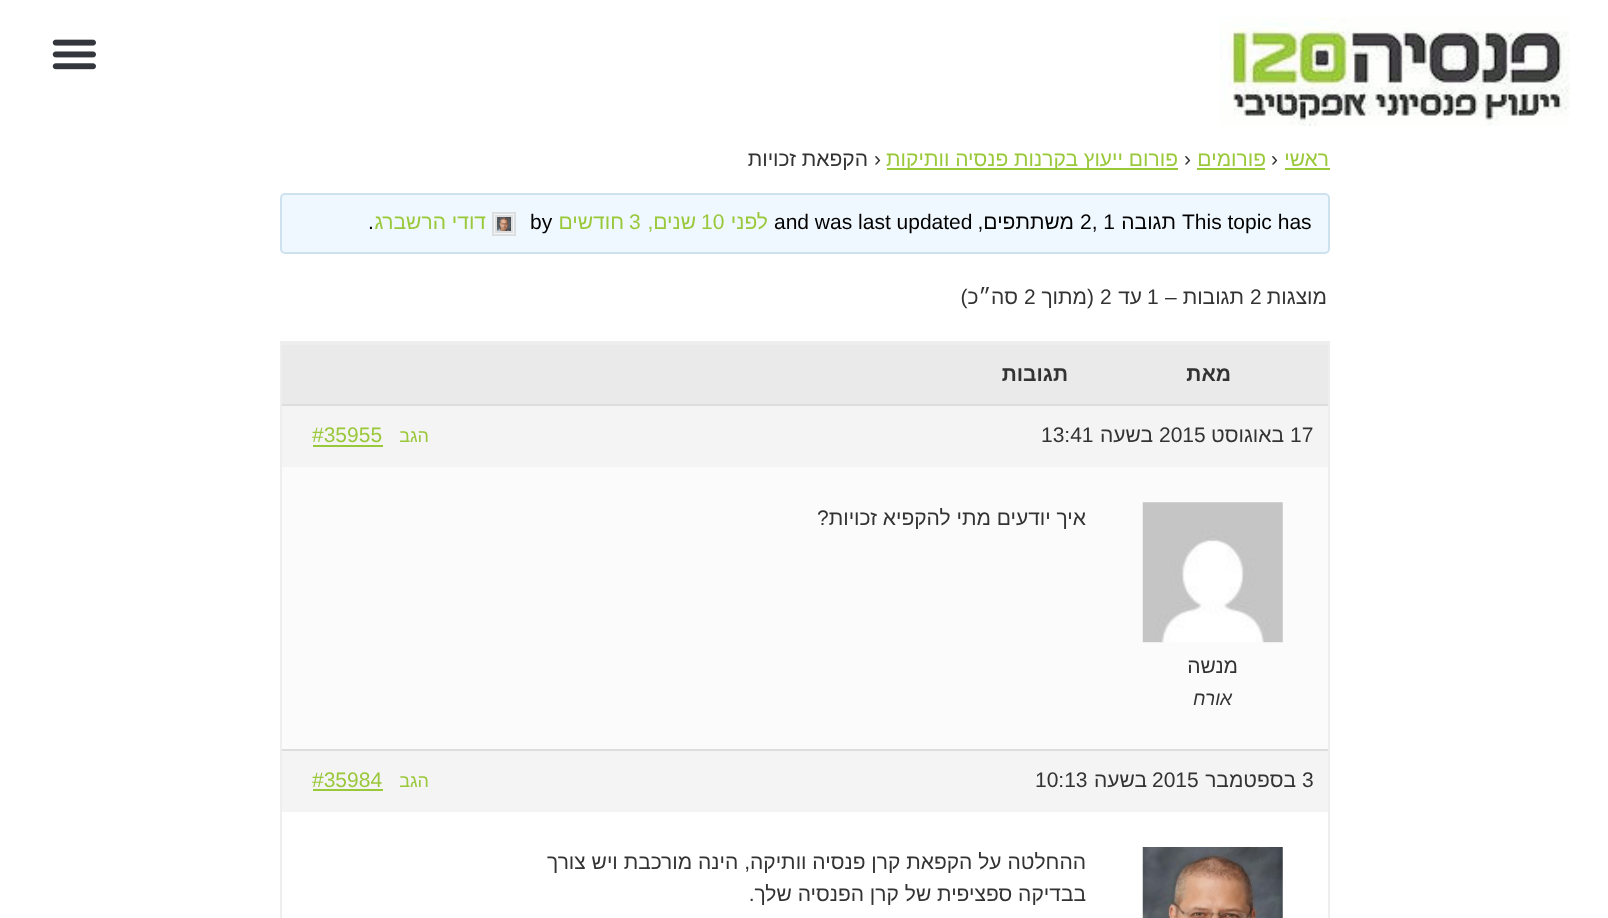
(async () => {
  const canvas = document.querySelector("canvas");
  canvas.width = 1608;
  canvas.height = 918;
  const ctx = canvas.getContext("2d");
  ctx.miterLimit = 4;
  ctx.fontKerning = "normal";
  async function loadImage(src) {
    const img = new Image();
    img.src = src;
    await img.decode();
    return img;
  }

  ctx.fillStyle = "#ffffff";
  ctx.fillRect(0, 0, 1608, 918);
  ctx.drawImage(await loadImage("img/1.png"), 1220, 17, 350, 109);
  ctx.drawImage(await loadImage("img/2.png"), 52, 39, 44, 31);
  for (const [x, y, w, h, color] of [
    [1285, 168, 45, 2, "#9ac83b"],
    [1197, 168, 68, 2, "#9ac83b"],
    [887, 168, 291, 2, "#9ac83b"],
  ]) {
    ctx.fillStyle = color;
    ctx.fillRect(x, y, w, h);
  }
  ctx.fillStyle = "#f0f8ff";
  ctx.beginPath();
  ctx.roundRect(281, 194, 1048, 59, 4);
  ctx.fill();
  ctx.strokeStyle = "#cee1ef";
  ctx.lineWidth = 2;
  ctx.stroke();
  ctx.strokeStyle = "#dddddd";
  ctx.strokeRect(493, 213, 22, 22);
  ctx.strokeRect(496, 216, 16, 16);
  ctx.drawImage(await loadImage("img/3.png"), 497, 217, 14, 14);
  ctx.strokeStyle = "#eeeeee";
  ctx.strokeRect(281, 342, 1048, 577);
  for (const [x, y, w, h, color] of [
    [282, 345, 1046, 59, "#eaeaea"],
    [282, 343, 1046, 2, "#eeeeee"],
    [282, 406, 1046, 61, "#f4f4f4"],
    [282, 404, 1046, 2, "#dddddd"],
    [313, 445, 70, 2, "#9ac83b"],
    [282, 467, 1046, 282, "#fbfbfb"],
  ]) {
    ctx.fillStyle = color;
    ctx.fillRect(x, y, w, h);
  }
  ctx.drawImage(await loadImage("img/4.png"), 1142, 502, 141, 141);
  for (const [x, y, w, h, color] of [
    [282, 751, 1046, 61, "#f4f4f4"],
    [282, 749, 1046, 2, "#dddddd"],
    [313, 789, 70, 2, "#9ac83b"],
  ]) {
    ctx.fillStyle = color;
    ctx.fillRect(x, y, w, h);
  }
  ctx.drawImage(await loadImage("img/5.png"), 1142, 847, 141, 71);
  ctx.direction = "rtl";
  ctx.font = "21px Liberation Sans";
  ctx.fillText("ראשי", 1329, 166);
  ctx.direction = "ltr";
  ctx.fillStyle = "#333333";
  ctx.fillText("›", 1271, 166);
  ctx.direction = "rtl";
  ctx.fillStyle = "#9ac83b";
  ctx.fillText("פורומים", 1266, 166);
  ctx.direction = "ltr";
  ctx.fillStyle = "#333333";
  ctx.fillText("›", 1184, 166);
  ctx.direction = "rtl";
  ctx.fillStyle = "#9ac83b";
  ctx.fillText("פורום ייעוץ בקרנות פנסיה וותיקות", 1178, 166);
  ctx.direction = "ltr";
  ctx.fillStyle = "#333333";
  ctx.fillText("›", 874, 166);
  ctx.direction = "rtl";
  ctx.fillText("הקפאת זכויות", 868, 166);
  ctx.direction = "ltr";
  ctx.fillStyle = "#000000";
  ctx.fillText("This topic has", 1182, 229);
  ctx.direction = "rtl";
  ctx.fillText("תגובה", 1176, 229);
  ctx.direction = "ltr";
  ctx.fillText("2, 1", 1080, 229);
  ctx.direction = "rtl";
  ctx.fillText("משתתפים,", 1074, 229);
  ctx.direction = "ltr";
  ctx.fillText("and was last updated", 774, 229);
  ctx.direction = "rtl";
  ctx.fillStyle = "#9ac83b";
  ctx.fillText("לפני", 768, 229);
  ctx.direction = "ltr";
  ctx.fillText("10", 701, 229);
  ctx.direction = "rtl";
  ctx.fillText("שנים,", 696, 229);
  ctx.direction = "ltr";
  ctx.fillText("3", 629, 229);
  ctx.direction = "rtl";
  ctx.fillText("חודשים", 624, 229);
  ctx.direction = "ltr";
  ctx.fillStyle = "#000000";
  ctx.fillText("by", 530, 229);
  ctx.direction = "rtl";
  ctx.fillStyle = "#9ac83b";
  ctx.fillText("דודי הרשברג", 486, 229);
  ctx.direction = "ltr";
  ctx.fillStyle = "#000000";
  ctx.fillText(".", 368, 229);
  ctx.direction = "rtl";
  ctx.fillStyle = "#333333";
  ctx.fillText("מוצגות", 1327, 304);
  ctx.direction = "ltr";
  ctx.fillText("2", 1250, 304);
  ctx.direction = "rtl";
  ctx.fillText("תגובות –", 1244, 304);
  ctx.direction = "ltr";
  ctx.fillText("1", 1147, 304);
  ctx.direction = "rtl";
  ctx.fillText("עד", 1142, 304);
  ctx.direction = "ltr";
  ctx.fillText("2", 1100, 304);
  ctx.direction = "rtl";
  ctx.fillText("(מתוך", 1094, 304);
  ctx.direction = "ltr";
  ctx.fillText("2", 1024, 304);
  ctx.direction = "rtl";
  ctx.fillText("סה״כ)", 1018, 304);
  ctx.font = "bold 21px Liberation Sans";
  ctx.fillText("מאת", 1231, 381);
  ctx.fillText("תגובות", 1068, 381);
  ctx.direction = "ltr";
  ctx.font = "21px Liberation Sans";
  ctx.fillText("17", 1290, 442);
  ctx.direction = "rtl";
  ctx.fillText("באוגוסט", 1284, 442);
  ctx.direction = "ltr";
  ctx.fillText("2015", 1159, 442);
  ctx.direction = "rtl";
  ctx.fillText("בשעה", 1153, 442);
  ctx.direction = "ltr";
  ctx.fillText("13:41", 1041, 442);
  ctx.direction = "rtl";
  ctx.font = "18px Liberation Sans";
  ctx.fillStyle = "#9ac83b";
  ctx.fillText("הגב", 429, 442);
  ctx.direction = "ltr";
  ctx.font = "21px Liberation Sans";
  ctx.fillText("#35955", 312, 442);
  ctx.direction = "rtl";
  ctx.fillStyle = "#333333";
  ctx.fillText("איך יודעים מתי להקפיא זכויות?", 1086, 525);
  ctx.fillText("מנשה", 1238, 673);
  ctx.font = "italic 19px Liberation Sans";
  ctx.fillText("אורח", 1232, 705);
  ctx.direction = "ltr";
  ctx.font = "21px Liberation Sans";
  ctx.fillText("3", 1302, 787);
  ctx.direction = "rtl";
  ctx.fillText("בספטמבר", 1296, 787);
  ctx.direction = "ltr";
  ctx.fillText("2015", 1152, 787);
  ctx.direction = "rtl";
  ctx.fillText("בשעה", 1147, 787);
  ctx.direction = "ltr";
  ctx.fillText("10:13", 1035, 787);
  ctx.direction = "rtl";
  ctx.font = "18px Liberation Sans";
  ctx.fillStyle = "#9ac83b";
  ctx.fillText("הגב", 429, 787);
  ctx.direction = "ltr";
  ctx.font = "21px Liberation Sans";
  ctx.fillText("#35984", 312, 787);
  ctx.direction = "rtl";
  ctx.fillStyle = "#333333";
  ctx.fillText("ההחלטה על הקפאת קרן פנסיה וותיקה, הינה מורכבת ויש צורך", 1086, 869);
  ctx.fillText("בבדיקה ספציפית של קרן הפנסיה שלך.", 1086, 901);
})();
